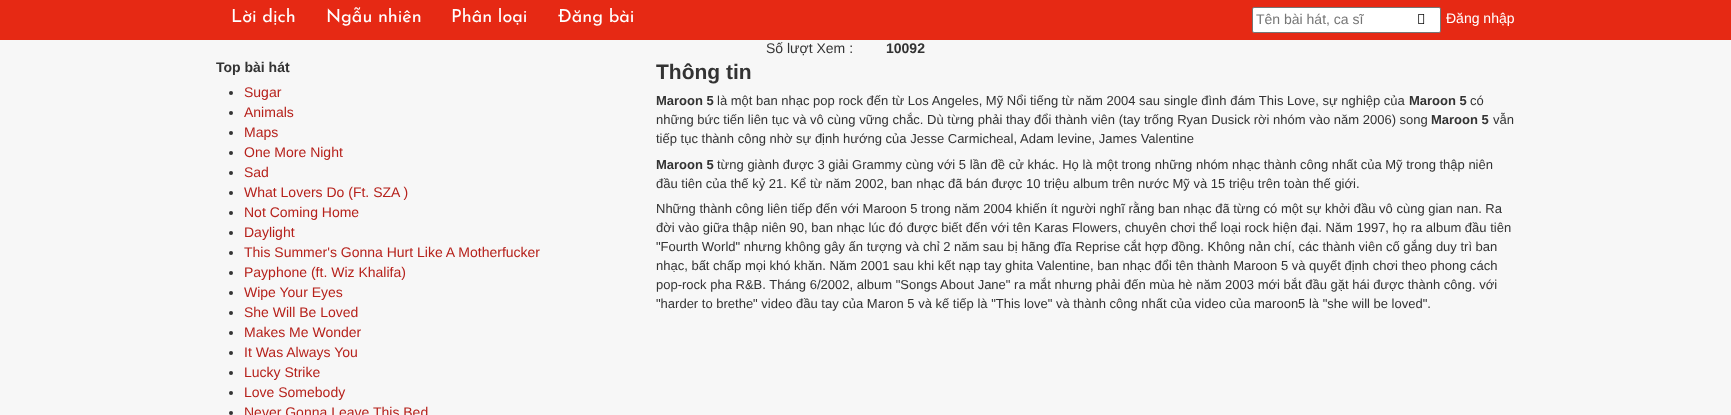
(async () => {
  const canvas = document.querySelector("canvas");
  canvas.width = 1731;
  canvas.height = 415;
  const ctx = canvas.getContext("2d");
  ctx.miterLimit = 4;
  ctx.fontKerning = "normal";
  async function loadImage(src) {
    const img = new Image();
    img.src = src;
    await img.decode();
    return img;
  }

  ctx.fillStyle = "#f7f7f7";
  ctx.fillRect(0, 0, 1731, 415);
  ctx.fillStyle = "#e62914";
  ctx.fillRect(0, 0, 1731, 40);
  ctx.fillStyle = "#ffffff";
  ctx.beginPath();
  ctx.roundRect(1252.5, 7.5, 188, 25, 1.5);
  ctx.fill();
  ctx.strokeStyle = "#767676";
  ctx.stroke();
  ctx.drawImage(await loadImage("img/1.png"), 1418, 14, 7, 10);
  ctx.fillStyle = "#333333";
  ctx.beginPath();
  ctx.arc(231, 93, 2, 0, Math.PI * 2);
  ctx.fill();
  ctx.beginPath();
  ctx.arc(231, 113, 2, 0, Math.PI * 2);
  ctx.fill();
  ctx.beginPath();
  ctx.arc(231, 133, 2, 0, Math.PI * 2);
  ctx.fill();
  ctx.beginPath();
  ctx.arc(231, 153, 2, 0, Math.PI * 2);
  ctx.fill();
  ctx.beginPath();
  ctx.arc(231, 173, 2, 0, Math.PI * 2);
  ctx.fill();
  ctx.beginPath();
  ctx.arc(231, 193, 2, 0, Math.PI * 2);
  ctx.fill();
  ctx.beginPath();
  ctx.arc(231, 213, 2, 0, Math.PI * 2);
  ctx.fill();
  ctx.beginPath();
  ctx.arc(231, 233, 2, 0, Math.PI * 2);
  ctx.fill();
  ctx.beginPath();
  ctx.arc(231, 253, 2, 0, Math.PI * 2);
  ctx.fill();
  ctx.beginPath();
  ctx.arc(231, 273, 2, 0, Math.PI * 2);
  ctx.fill();
  ctx.beginPath();
  ctx.arc(231, 293, 2, 0, Math.PI * 2);
  ctx.fill();
  ctx.beginPath();
  ctx.arc(231, 313, 2, 0, Math.PI * 2);
  ctx.fill();
  ctx.beginPath();
  ctx.arc(231, 333, 2, 0, Math.PI * 2);
  ctx.fill();
  ctx.beginPath();
  ctx.arc(231, 353, 2, 0, Math.PI * 2);
  ctx.fill();
  ctx.beginPath();
  ctx.arc(231, 373, 2, 0, Math.PI * 2);
  ctx.fill();
  ctx.beginPath();
  ctx.arc(231, 393, 2, 0, Math.PI * 2);
  ctx.fill();
  ctx.beginPath();
  ctx.arc(231, 413, 2, 0, Math.PI * 2);
  ctx.fill();
  ctx.font = "18px Josefin Sans";
  ctx.fillStyle = "#ffffff";
  for (const [text, x, y] of [
    ["Lời dịch", 231, 22],
    ["Ngẫu nhiên", 326, 22],
    ["Phân loại", 451, 22],
    ["Đăng bài", 558, 22],
  ]) {
    ctx.fillText(text, x, y);
  }
  ctx.font = "14px Liberation Sans";
  ctx.fillStyle = "#757575";
  ctx.fillText("Tên bài hát, ca sĩ", 1256, 24);
  ctx.fillStyle = "#ffffff";
  ctx.fillText("Đăng nhập", 1446, 23);
  ctx.fillStyle = "#333333";
  ctx.fillText("Số lượt Xem :", 766, 53);
  ctx.font = "bold 14px Liberation Sans";
  ctx.fillText("10092", 886, 53);
  ctx.fillText("Top bài hát", 216, 72);
  ctx.font = "14px Liberation Sans";
  ctx.fillStyle = "#b6211b";
  for (const [text, x, y] of [
    ["Sugar", 244, 97],
    ["Animals", 244, 117],
    ["Maps", 244, 137],
    ["One More Night", 244, 157],
    ["Sad", 244, 177],
    ["What Lovers Do (Ft. SZA )", 244, 197],
    ["Not Coming Home", 244, 217],
    ["Daylight", 244, 237],
    ["This Summer's Gonna Hurt Like A Motherfucker", 244, 257],
    ["Payphone (ft. Wiz Khalifa)", 244, 277],
    ["Wipe Your Eyes", 244, 297],
    ["She Will Be Loved", 244, 317],
    ["Makes Me Wonder", 244, 337],
    ["It Was Always You", 244, 357],
    ["Lucky Strike", 244, 377],
    ["Love Somebody", 244, 397],
    ["Never Gonna Leave This Bed", 244, 417],
  ]) {
    ctx.fillText(text, x, y);
  }
  ctx.font = "bold 21px Liberation Sans";
  ctx.fillStyle = "#333333";
  ctx.fillText("Thông tin", 656, 79);
  ctx.font = "bold 13px Liberation Sans";
  ctx.fillText("Maroon 5", 656, 105);
  ctx.font = "13px Liberation Sans";
  ctx.fillText("là một ban nhạc pop rock đến từ Los Angeles, Mỹ Nổi tiếng từ năm 2004 sau single đình đám This Love, sự nghiệp của", 717, 105);
  ctx.font = "bold 13px Liberation Sans";
  ctx.fillText("Maroon 5", 1409, 105);
  ctx.font = "13px Liberation Sans";
  ctx.fillText("có", 1470, 105);
  ctx.fillText("những bức tiến liên tục và vô cùng vững chắc. Dù từng phải thay đổi thành viên (tay trống Ryan Dusick rời nhóm vào năm 2006) song", 656, 124);
  ctx.font = "bold 13px Liberation Sans";
  ctx.fillText("Maroon 5", 1431, 124);
  ctx.font = "13px Liberation Sans";
  ctx.fillText("vẫn", 1493, 124);
  ctx.fillText("tiếp tục thành công nhờ sự định hướng của Jesse Carmicheal, Adam levine, James Valentine", 656, 143);
  ctx.font = "bold 13px Liberation Sans";
  ctx.fillText("Maroon 5", 656, 169);
  ctx.font = "13px Liberation Sans";
  for (const [text, x, y] of [
    ["từng giành được 3 giải Grammy cùng với 5 lần đề cử khác. Họ là một trong những nhóm nhạc thành công nhất của Mỹ trong thập niên", 717, 169],
    ["đầu tiên của thế kỷ 21. Kể từ năm 2002, ban nhạc đã bán được 10 triệu album trên nước Mỹ và 15 triệu trên toàn thế giới.", 656, 188],
    ["Những thành công liên tiếp đến với Maroon 5 trong năm 2004 khiến ít người nghĩ rằng ban nhạc đã từng có một sự khởi đầu vô cùng gian nan. Ra", 656, 213],
    ["đời vào giữa thập niên 90, ban nhạc lúc đó được biết đến với tên Karas Flowers, chuyên chơi thể loại rock hiện đại. Năm 1997, họ ra album đầu tiên", 656, 232],
    ["\"Fourth World\" nhưng không gây ấn tượng và chỉ 2 năm sau bị hãng đĩa Reprise cắt hợp đồng. Không nản chí, các thành viên cố gắng duy trì ban", 656, 251],
    ["nhạc, bất chấp mọi khó khăn. Năm 2001 sau khi kết nạp tay ghita Valentine, ban nhạc đổi tên thành Maroon 5 và quyết định chơi theo phong cách", 656, 270],
    ["pop-rock pha R&B. Tháng 6/2002, album \"Songs About Jane\" ra mắt nhưng phải đến mùa hè năm 2003 mới bắt đầu gặt hái được thành công. với", 656, 289],
    ["\"harder to brethe\" video đầu tay của Maron 5 và kế tiếp là \"This love\" và thành công nhất của video của maroon5 là \"she will be loved\".", 656, 308],
  ]) {
    ctx.fillText(text, x, y);
  }
})();
